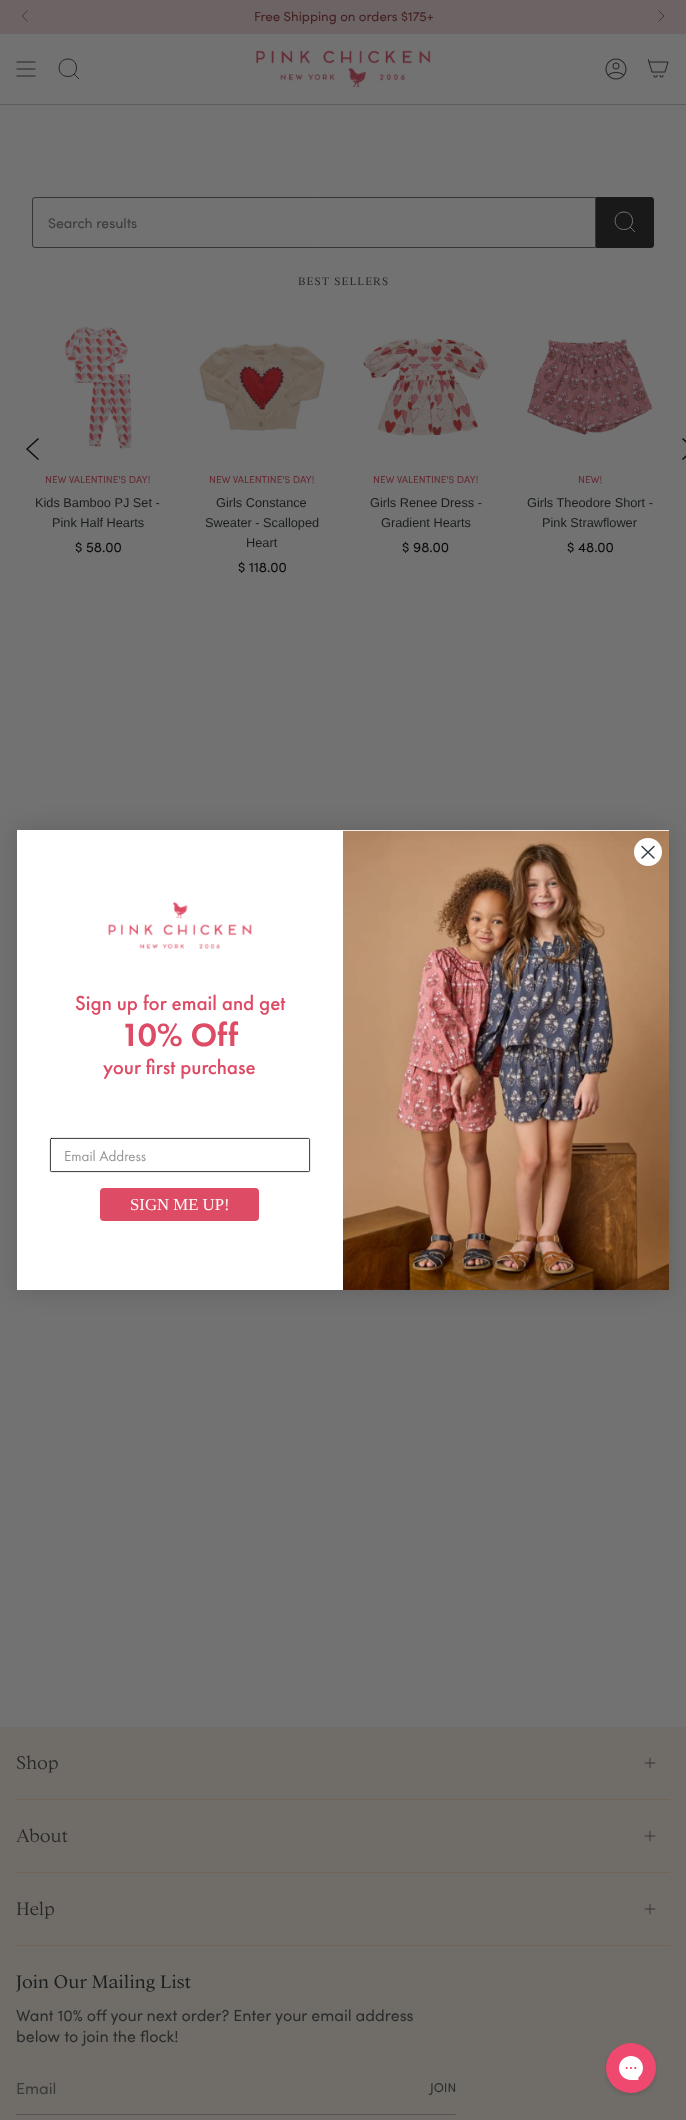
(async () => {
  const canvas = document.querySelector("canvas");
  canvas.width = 686;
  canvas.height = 2120;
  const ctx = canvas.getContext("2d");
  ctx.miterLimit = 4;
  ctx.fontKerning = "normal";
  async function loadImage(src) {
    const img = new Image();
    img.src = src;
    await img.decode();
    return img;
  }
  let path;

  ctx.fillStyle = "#727272";
  ctx.fillRect(0, 0, 686, 2120);
  ctx.fillStyle = "#6c6365";
  ctx.fillRect(0, 0, 686, 34);
  path = new Path2D("M27.5 21.5L22 16L27.5 10.5");
  ctx.strokeStyle = "#452122";
  ctx.lineWidth = 0.7;
  ctx.stroke(path);
  path = new Path2D("M658.5 10.5L664 16L658.5 21.5");
  ctx.stroke(path);
  path = new Path2D("M17 62H35M17 69H35M17 76H35");
  ctx.strokeStyle = "#272626";
  ctx.lineWidth = 1;
  ctx.lineCap = "round";
  ctx.lineJoin = "round";
  ctx.stroke(path);
  path = new Path2D("M68 59C79.5 59 79.5 77 67.5 76.5C56 76 56.5 59 68 59ZM74 74L79 79");
  ctx.lineCap = "butt";
  ctx.lineJoin = "miter";
  ctx.stroke(path);
  ctx.drawImage(await loadImage("img/1.png"), 255, 50, 176, 38);
  ctx.drawImage(await loadImage("img/2.png"), 605, 58, 22, 22);
  ctx.drawImage(await loadImage("img/3.png"), 647, 59, 22, 19);
  ctx.fillStyle = "#5c5c5c";
  ctx.fillRect(0, 104, 686, 1);
  ctx.beginPath();
  ctx.roundRect(32.5, 197.5, 563, 50, [2.5, 0, 0, 2.5]);
  ctx.strokeStyle = "#363636";
  ctx.stroke();
  ctx.fillStyle = "#191919";
  ctx.beginPath();
  ctx.roundRect(596.5, 197.5, 57, 50, [0, 2.5, 2.5, 0]);
  ctx.fill();
  ctx.strokeStyle = "#191919";
  ctx.stroke();
  path = new Path2D("M624 212C635.5 212 635.5 230 623.5 229.5C612 229 612.5 212 624 212ZM630 227L635 232");
  ctx.strokeStyle = "#727272";
  ctx.stroke(path);
  path = new Path2D("M38.5 459.5L27 449L38.5 438.5");
  ctx.strokeStyle = "#0c0c0c";
  ctx.lineWidth = 1.4;
  ctx.stroke(path);
  path = new Path2D("M682.5 438.5L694 449L682.5 459.5");
  ctx.stroke(path);
  ctx.drawImage(await loadImage("img/4.png"), 64, 326, 68, 123);
  ctx.drawImage(await loadImage("img/5.png"), 199, 343, 126, 88);
  ctx.drawImage(await loadImage("img/6.png"), 363, 338, 126, 98);
  ctx.drawImage(await loadImage("img/7.png"), 527, 339, 126, 96);
  ctx.fillStyle = "rgba(0, 0, 0, 0.15)";
  ctx.filter = "blur(12.5px)";
  ctx.beginPath();
  ctx.rect(17, 830, 652, 460);
  ctx.fill();
  ctx.filter = "none";
  ctx.fillStyle = "#ffffff";
  ctx.fillRect(17, 830, 652, 460);
  ctx.drawImage(await loadImage("img/9.png"), 343, 830, 327, 460);
  ctx.beginPath();
  ctx.arc(648, 852, 14, 0, Math.PI * 2);
  ctx.fill();
  path = new Path2D("M642 846.5L654 858M642 858L654 846.5Z");
  ctx.strokeStyle = "#373f47";
  ctx.lineWidth = 1.5;
  ctx.lineCap = "round";
  ctx.lineJoin = "round";
  ctx.stroke(path);
  ctx.drawImage(await loadImage("img/8.png"), 108, 902, 144, 47);
  ctx.beginPath();
  ctx.roundRect(50.4, 1138.4, 259.2, 33.2, 1.1);
  ctx.strokeStyle = "#000000";
  ctx.lineWidth = 0.8;
  ctx.lineJoin = "miter";
  ctx.stroke();
  ctx.fillStyle = "#dd4b65";
  ctx.beginPath();
  ctx.roundRect(100, 1188, 159, 33, 4);
  ctx.fill();
  ctx.fillStyle = "#706d69";
  ctx.fillRect(0, 1727, 686, 393);
  ctx.fillStyle = "#6f6456";
  ctx.fillRect(16, 1799, 654, 1);
  ctx.drawImage(await loadImage("img/10.png"), 644, 1757, 12, 12);
  ctx.fillRect(16, 1872, 654, 1);
  ctx.drawImage(await loadImage("img/10.png"), 644, 1830, 12, 12);
  ctx.fillRect(16, 1945, 654, 1);
  ctx.drawImage(await loadImage("img/10.png"), 644, 1903, 12, 12);
  ctx.fillStyle = "#585654";
  ctx.fillRect(16, 2114, 440, 1);
  ctx.drawImage(await loadImage("img/11.png"), 605, 2043, 52, 53);
  ctx.font = "13.25px Sofia";
  ctx.fillStyle = "#452122";
  ctx.fillText("Free Shipping on orders $175+", 254, 21);
  ctx.font = "14px Sofia";
  ctx.fillStyle = "#3b3b3b";
  ctx.fillText("Search results", 48, 228);
  ctx.letterSpacing = "1.25px";
  ctx.font = "300 12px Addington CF";
  ctx.fillStyle = "#272626";
  ctx.fillText("BEST SELLERS", 298, 285);
  ctx.letterSpacing = "0px";
  ctx.font = "10px Sofia";
  ctx.fillStyle = "#642a34";
  ctx.fillText("NEW VALENTINE'S DAY!", 45, 483);
  ctx.font = "12.75px Liberation Sans";
  ctx.fillStyle = "#1a1d1e";
  ctx.fillText("Kids Bamboo PJ Set -", 35, 507);
  ctx.fillText("Pink Half Hearts", 52, 527);
  ctx.font = "14px Sofia";
  ctx.fillStyle = "#0c0c0c";
  ctx.fillText("$ 58.00", 75, 552);
  ctx.font = "10px Sofia";
  ctx.fillStyle = "#642a34";
  ctx.fillText("NEW VALENTINE'S DAY!", 209, 483);
  ctx.font = "12.75px Liberation Sans";
  ctx.fillStyle = "#1a1d1e";
  for (const [text, x, y] of [
    ["Girls Constance", 216, 507],
    ["Sweater - Scalloped", 205, 527],
    ["Heart", 246, 547],
  ]) {
    ctx.fillText(text, x, y);
  }
  ctx.font = "14px Sofia";
  ctx.fillStyle = "#0c0c0c";
  ctx.fillText("$ 118.00", 238, 572);
  ctx.font = "10px Sofia";
  ctx.fillStyle = "#642a34";
  ctx.fillText("NEW VALENTINE'S DAY!", 373, 483);
  ctx.font = "12.75px Liberation Sans";
  ctx.fillStyle = "#1a1d1e";
  ctx.fillText("Girls Renee Dress -", 370, 507);
  ctx.fillText("Gradient Hearts", 381, 527);
  ctx.font = "14px Sofia";
  ctx.fillStyle = "#0c0c0c";
  ctx.fillText("$ 98.00", 402, 552);
  ctx.font = "10px Sofia";
  ctx.fillStyle = "#642a34";
  ctx.fillText("NEW!", 578, 483);
  ctx.font = "12.75px Liberation Sans";
  ctx.fillStyle = "#1a1d1e";
  ctx.fillText("Girls Theodore Short -", 527, 507);
  ctx.fillText("Pink Strawflower", 542, 527);
  ctx.font = "14px Sofia";
  ctx.fillStyle = "#0c0c0c";
  ctx.fillText("$ 48.00", 567, 552);
  ctx.font = "500 21px Futura PT";
  ctx.fillStyle = "#dd4b65";
  ctx.fillText("Sign up for email and get", 75, 1010);
  ctx.font = "500 33.5px 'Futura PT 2'";
  ctx.fillText("10% Off", 121, 1046);
  ctx.font = "500 21px Futura PT";
  ctx.fillText("your first purchase", 103, 1074);
  ctx.font = "15px Futura PT";
  ctx.fillStyle = "#949596";
  ctx.fillText("Email Address", 64, 1161);
  ctx.font = "16.75px Liberation Serif";
  ctx.fillStyle = "#fffbfc";
  ctx.fillText("SIGN ME UP!", 130, 1210);
  ctx.font = "100 20px Addington CF";
  ctx.fillStyle = "#272626";
  for (const [text, x, y] of [
    ["Shop", 16, 1769],
    ["About", 16, 1842],
    ["Help", 16, 1915],
  ]) {
    ctx.fillText(text, x, y);
  }
  ctx.font = "300 20px Addington CF";
  ctx.fillStyle = "#1a1d1e";
  ctx.fillText("Join Our Mailing List", 16, 1988);
  ctx.font = "16px Sofia";
  ctx.fillStyle = "#2a2c2c";
  ctx.fillText("Want 10% off your next order? Enter your email address", 16, 2021);
  ctx.fillText("below to join the flock!", 16, 2042);
  ctx.fillStyle = "#3b3b3b";
  ctx.fillText("Email", 16, 2094);
  ctx.font = "12.75px Sofia";
  ctx.fillStyle = "#2a2c2c";
  ctx.fillText("JOIN", 430, 2092);
})();
